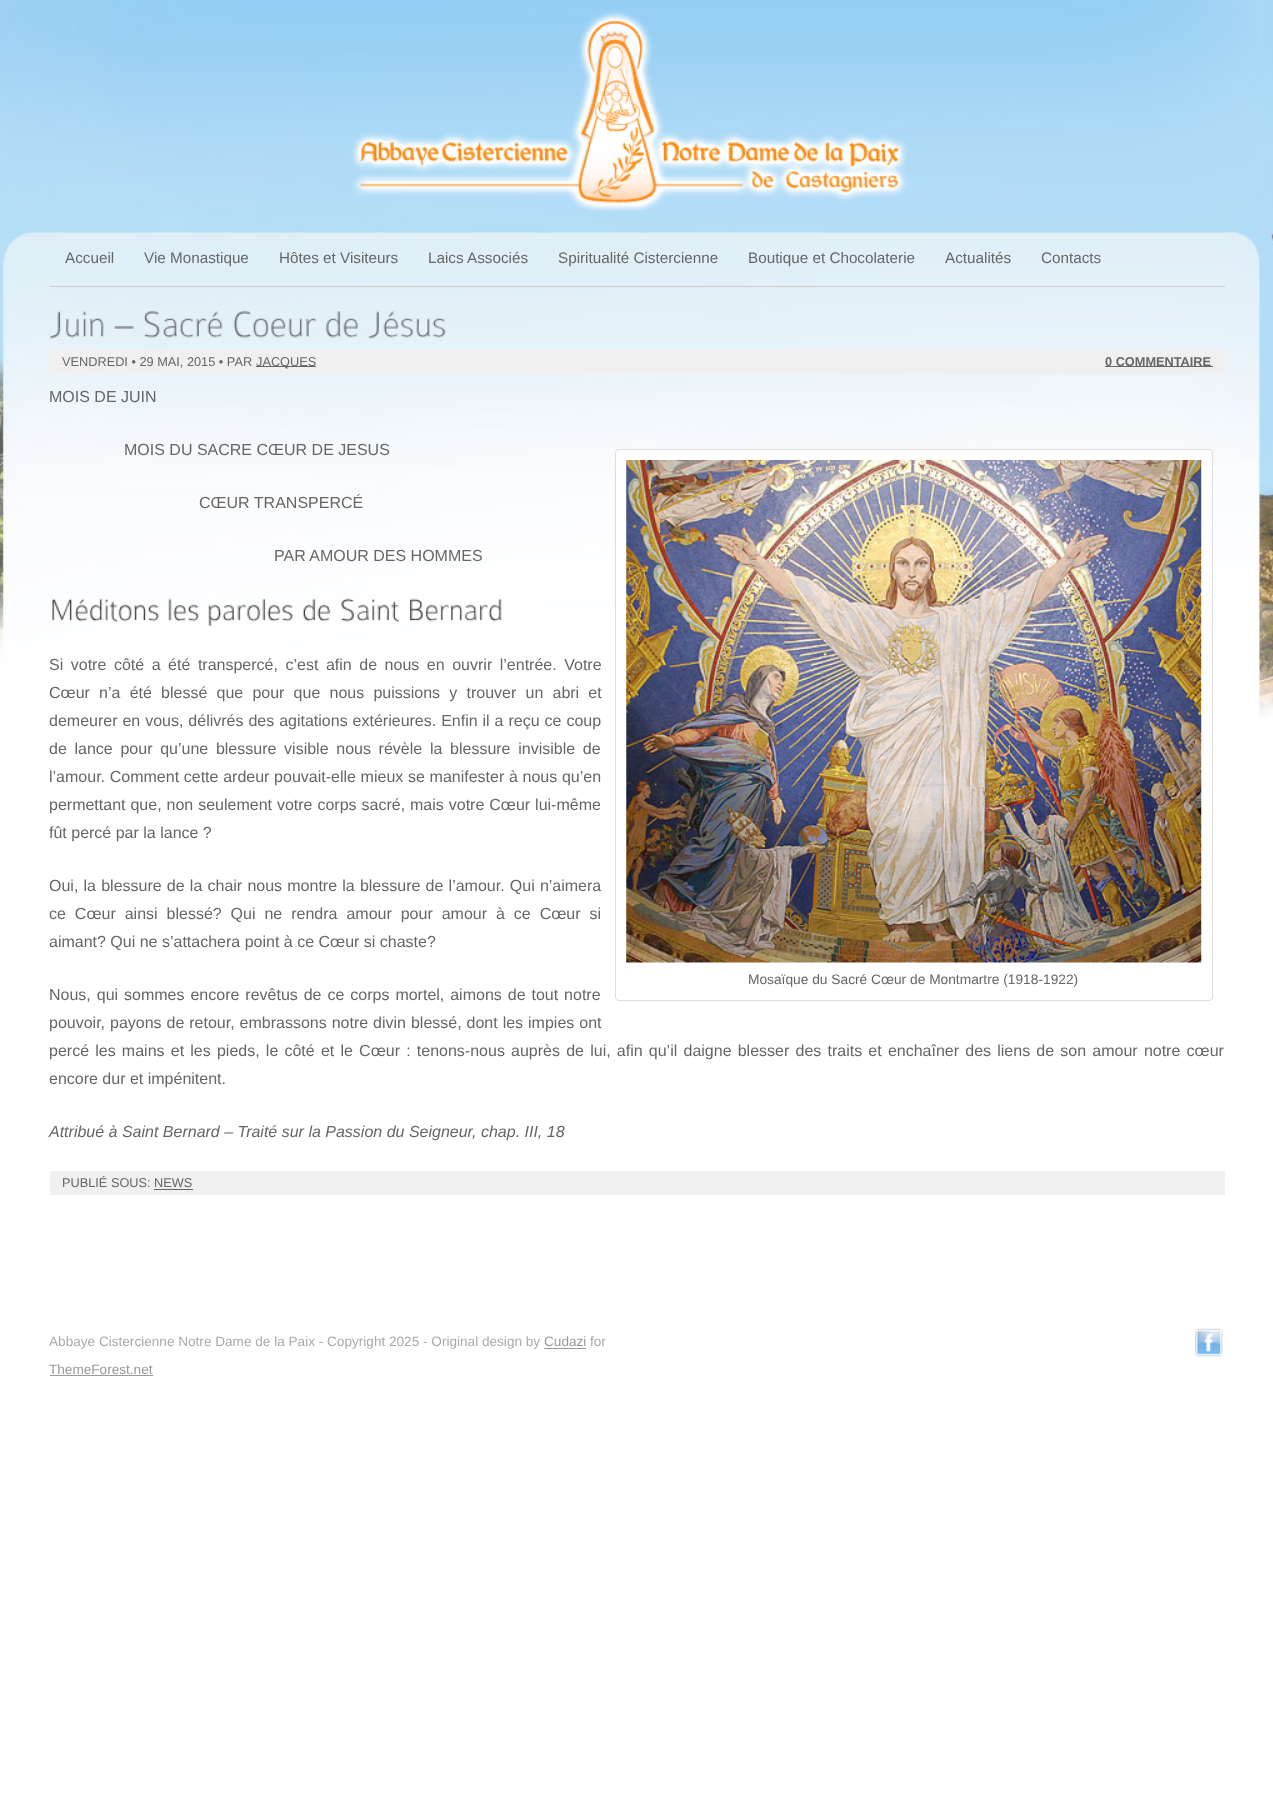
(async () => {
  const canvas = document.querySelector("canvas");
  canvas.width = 1273;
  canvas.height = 1801;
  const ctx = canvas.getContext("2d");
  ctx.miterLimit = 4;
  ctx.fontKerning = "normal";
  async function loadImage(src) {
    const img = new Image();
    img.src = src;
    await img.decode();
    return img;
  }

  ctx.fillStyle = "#ffffff";
  ctx.fillRect(0, 0, 1273, 1801);
  ctx.drawImage(await loadImage("img/1.png"), 0, 0, 1273, 719);
  ctx.drawImage(await loadImage("img/2.png"), 351, 11, 556, 200);
  ctx.fillStyle = "#cccccc";
  ctx.fillRect(50, 286, 1175, 1);
  ctx.drawImage(await loadImage("img/3.png"), 50, 311, 54, 28);
  ctx.drawImage(await loadImage("img/4.png"), 113, 326, 21, 3);
  ctx.drawImage(await loadImage("img/5.png"), 143, 311, 80, 27);
  ctx.drawImage(await loadImage("img/6.png"), 233, 311, 84, 27);
  ctx.drawImage(await loadImage("img/7.png"), 326, 311, 32, 27);
  ctx.drawImage(await loadImage("img/8.png"), 368, 311, 78, 28);
  for (const [x, y, w, h, color] of [
    [50, 349, 1175, 25, "#f0f0f0"],
    [256, 366, 60, 1, "#666666"],
    [1105, 366, 108, 1, "#666666"],
  ]) {
    ctx.fillStyle = color;
    ctx.fillRect(x, y, w, h);
  }
  ctx.drawImage(await loadImage("img/9.png"), 52, 598, 107, 24);
  ctx.drawImage(await loadImage("img/10.png"), 168, 598, 31, 24);
  ctx.drawImage(await loadImage("img/11.png"), 208, 598, 85, 29);
  ctx.drawImage(await loadImage("img/12.png"), 302, 598, 29, 24);
  ctx.drawImage(await loadImage("img/13.png"), 341, 598, 58, 24);
  ctx.drawImage(await loadImage("img/14.png"), 409, 598, 93, 24);
  ctx.fillStyle = "#ffffff";
  ctx.beginPath();
  ctx.roundRect(615.5, 449.5, 597, 551, 3.5);
  ctx.fill();
  ctx.strokeStyle = "#dddddd";
  ctx.stroke();
  ctx.drawImage(await loadImage("img/15.png"), 626, 460, 576, 503);
  for (const [x, y, w, h, color] of [
    [50, 1171, 1175, 24, "#f0f0f0"],
    [154, 1189, 39, 1, "#666666"],
    [544, 1348, 42, 1, "#999999"],
    [50, 1375, 103, 1, "#999999"],
  ]) {
    ctx.fillStyle = color;
    ctx.fillRect(x, y, w, h);
  }
  ctx.drawImage(await loadImage("img/16.png"), 1195, 1328, 28, 29);
  ctx.font = "15.25px Liberation Sans";
  ctx.fillStyle = "#666666";
  for (const [text, x, y] of [
    ["Accueil", 65, 263],
    ["Vie Monastique", 144, 263],
    ["Hôtes et Visiteurs", 279, 263],
    ["Laics Associés", 428, 263],
    ["Spiritualité Cistercienne", 558, 263],
    ["Boutique et Chocolaterie", 748, 263],
    ["Actualités", 945, 263],
    ["Contacts", 1041, 263],
  ]) {
    ctx.fillText(text, x, y);
  }
  ctx.font = "12.75px Liberation Sans";
  ctx.fillText("VENDREDI • 29 MAI, 2015 • PAR", 62, 366);
  ctx.fillText("JACQUES", 256, 366);
  ctx.font = "bold 12.75px Liberation Sans";
  ctx.fillText("0 COMMENTAIRE", 1105, 366);
  ctx.font = "16px Liberation Sans";
  for (const [text, x, y] of [
    ["MOIS DE JUIN", 49, 402],
    ["MOIS DU SACRE CŒUR DE JESUS", 124, 455],
    ["CŒUR TRANSPERCÉ", 199, 508],
    ["PAR AMOUR DES HOMMES", 274, 561],
  ]) {
    ctx.fillText(text, x, y);
  }
  ctx.wordSpacing = "3.1px";
  ctx.fillText("Si votre côté a été transpercé, c’est afin de nous en ouvrir l’entrée. Votre", 49, 670);
  ctx.wordSpacing = "4.75px";
  ctx.fillText("Cœur n’a été blessé que pour que nous puissions y trouver un abri et", 49, 698);
  ctx.wordSpacing = "0.5px";
  ctx.fillText("demeurer en vous, délivrés des agitations extérieures. Enfin il a reçu ce coup", 49, 726);
  ctx.wordSpacing = "3.25px";
  ctx.fillText("de lance pour qu’une blessure visible nous révèle la blessure invisible de", 49, 754);
  ctx.wordSpacing = "0.25px";
  ctx.fillText("l’amour. Comment cette ardeur pouvait-elle mieux se manifester à nous qu’en", 49, 782);
  ctx.wordSpacing = "0.5px";
  ctx.fillText("permettant que, non seulement votre corps sacré, mais votre Cœur lui-même", 49, 810);
  ctx.wordSpacing = "0px";
  ctx.fillText("fût percé par la lance ?", 49, 838);
  ctx.wordSpacing = "0.75px";
  ctx.fillText("Oui, la blessure de la chair nous montre la blessure de l’amour. Qui n’aimera", 49, 891);
  ctx.wordSpacing = "4.5px";
  ctx.fillText("ce Cœur ainsi blessé? Qui ne rendra amour pour amour à ce Cœur si", 49, 919);
  ctx.wordSpacing = "0px";
  ctx.fillText("aimant? Qui ne s’attachera point à ce Cœur si chaste?", 49, 947);
  ctx.font = "13.75px Liberation Sans";
  ctx.fillText("Mosaïque du Sacré Cœur de Montmartre (1918-1922)", 748, 984);
  ctx.wordSpacing = "1.5px";
  ctx.font = "16px Liberation Sans";
  ctx.fillText("Nous, qui sommes encore revêtus de ce corps mortel, aimons de tout notre", 49, 1000);
  ctx.wordSpacing = "0.5px";
  ctx.fillText("pouvoir, payons de retour, embrassons notre divin blessé, dont les impies ont", 49, 1028);
  ctx.wordSpacing = "1.75px";
  ctx.fillText("percé les mains et les pieds, le côté et le Cœur : tenons-nous auprès de lui, afin qu’il daigne blesser des traits et enchaîner des liens de son amour notre cœur", 49, 1056);
  ctx.wordSpacing = "0px";
  ctx.fillText("encore dur et impénitent.", 49, 1084);
  ctx.font = "italic 16px Liberation Sans";
  ctx.fillText("Attribué à Saint Bernard – Traité sur la Passion du Seigneur, chap. III, 18", 49, 1137);
  ctx.font = "12.75px Liberation Sans";
  ctx.fillText("PUBLIÉ SOUS: NEWS", 62, 1187);
  ctx.font = "13.6px Liberation Sans";
  ctx.fillStyle = "#aaaaaa";
  ctx.fillText("Abbaye Cistercienne Notre Dame de la Paix - Copyright 2025 - Original design by", 49, 1346);
  ctx.fillStyle = "#999999";
  ctx.fillText("Cudazi", 544, 1346);
  ctx.fillStyle = "#aaaaaa";
  ctx.fillText("for", 590, 1346);
  ctx.fillStyle = "#999999";
  ctx.fillText("ThemeForest.net", 49, 1374);
})();
